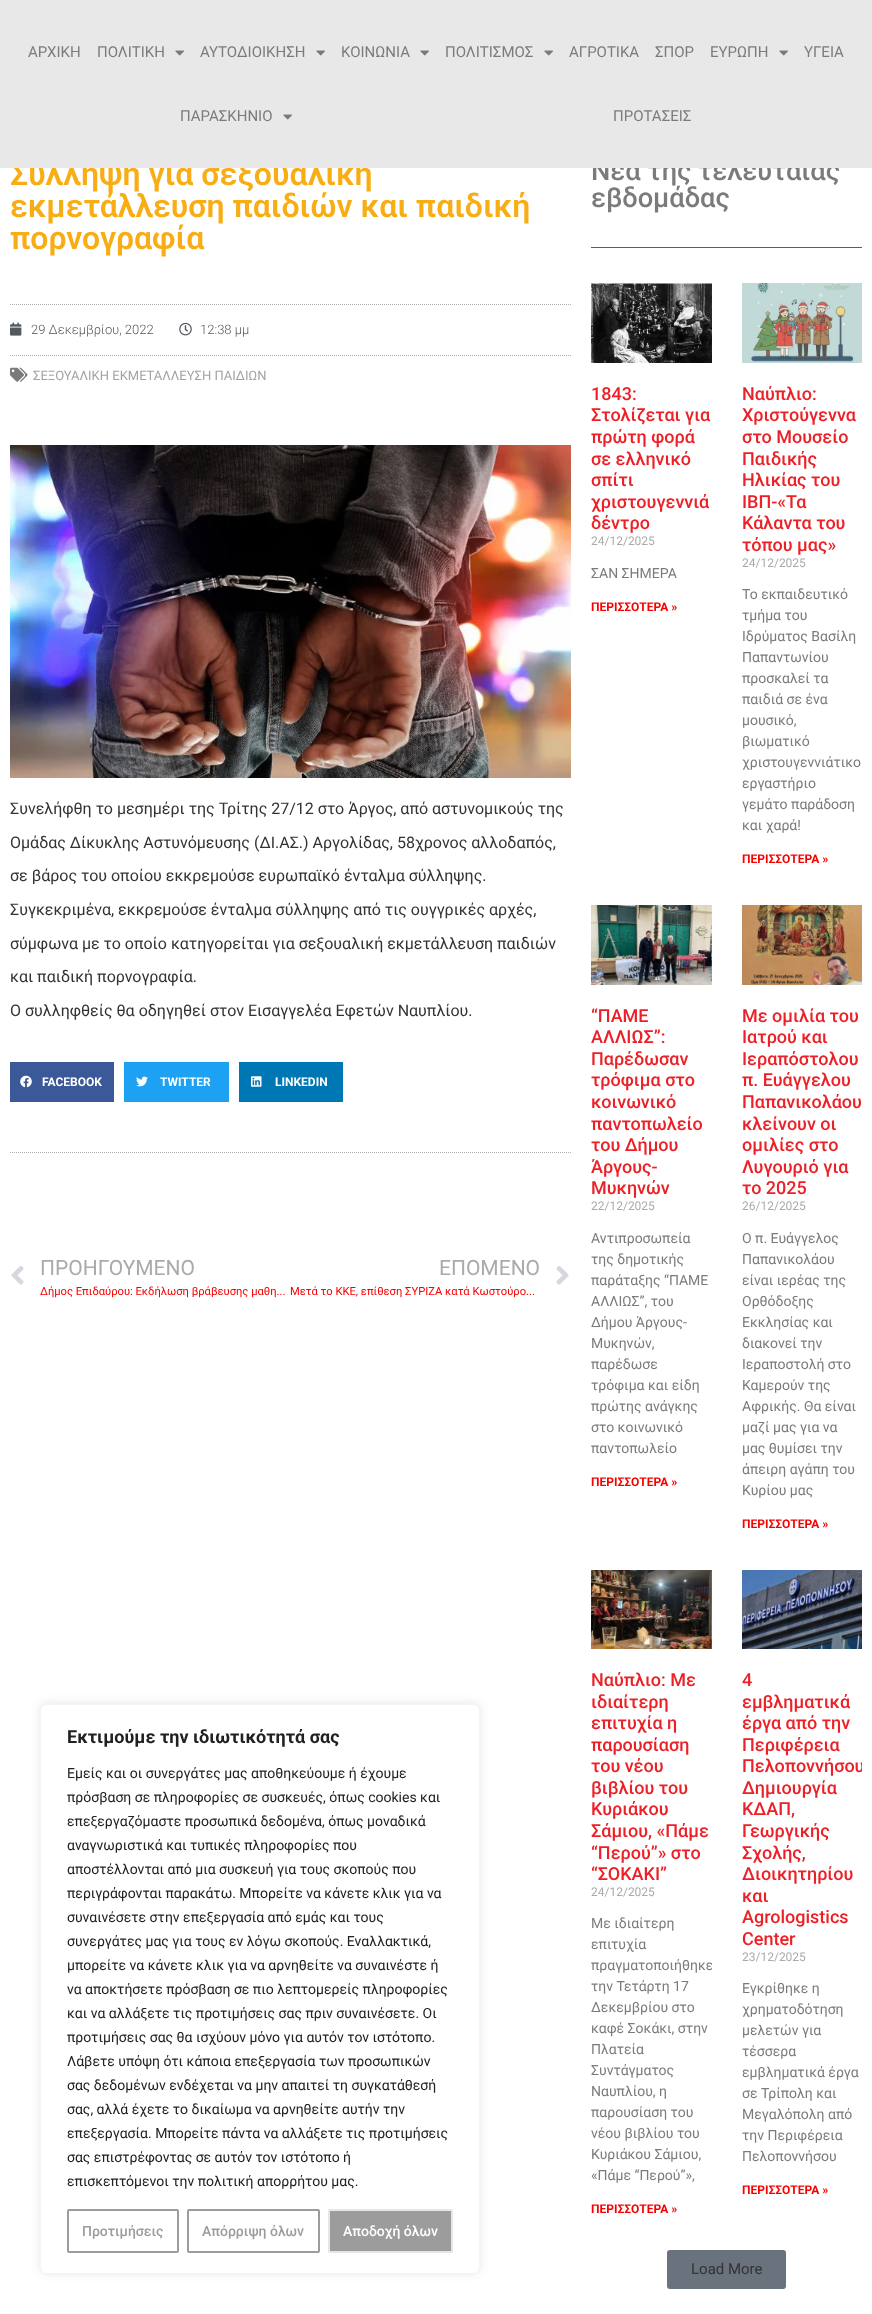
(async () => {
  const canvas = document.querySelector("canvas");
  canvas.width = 872;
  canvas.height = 2314;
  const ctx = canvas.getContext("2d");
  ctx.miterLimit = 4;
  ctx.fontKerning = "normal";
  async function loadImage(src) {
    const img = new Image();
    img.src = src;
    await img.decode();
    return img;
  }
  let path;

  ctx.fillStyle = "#ffffff";
  ctx.fillRect(0, 0, 872, 2314);
  path = new Path2D("M10 304.5H571");
  ctx.strokeStyle = "#afafaf";
  ctx.setLineDash([1, 1]);
  ctx.stroke(path);
  path = new Path2D("M10 355.5H571");
  ctx.stroke(path);
  ctx.drawImage(await loadImage("img/2.png"), 10, 322, 12, 14);
  ctx.drawImage(await loadImage("img/3.png"), 179, 322, 13, 14);
  ctx.drawImage(await loadImage("img/4.png"), 10, 367, 18, 15);
  ctx.drawImage(await loadImage("img/5.png"), 10, 445, 561, 333);
  ctx.fillStyle = "#3b5998";
  ctx.fillRect(10, 1062, 104, 40);
  ctx.drawImage(await loadImage("img/6.png"), 20, 1075, 12, 13);
  ctx.fillStyle = "#1da1f2";
  ctx.fillRect(124, 1062, 105, 40);
  ctx.drawImage(await loadImage("img/7.png"), 136, 1076, 12, 11);
  ctx.fillStyle = "#0077b5";
  ctx.fillRect(239, 1062, 104, 40);
  ctx.drawImage(await loadImage("img/8.png"), 251, 1076, 11, 11);
  path = new Path2D("M10 1152.5H571");
  ctx.stroke(path);
  ctx.drawImage(await loadImage("img/9.png"), 11, 1266, 13, 19);
  ctx.drawImage(await loadImage("img/10.png"), 556, 1266, 13, 19);
  ctx.fillStyle = "#ec2026";
  ctx.fillRect(591, 247, 271, 1);
  ctx.drawImage(await loadImage("img/11.png"), 591, 283, 121, 80);
  ctx.drawImage(await loadImage("img/12.png"), 742, 283, 120, 80);
  ctx.drawImage(await loadImage("img/13.png"), 591, 905, 121, 80);
  ctx.drawImage(await loadImage("img/14.png"), 742, 905, 120, 80);
  ctx.drawImage(await loadImage("img/15.png"), 591, 1570, 121, 79);
  ctx.drawImage(await loadImage("img/16.png"), 742, 1570, 120, 79);
  ctx.fillStyle = "#69727d";
  ctx.beginPath();
  ctx.roundRect(667, 2250, 119, 39, 3);
  ctx.fill();
  ctx.fillStyle = "rgba(172, 171, 171, 0.3)";
  ctx.filter = "blur(5px)";
  ctx.beginPath();
  ctx.roundRect(40, 1703, 440, 570, 6);
  ctx.fill();
  ctx.filter = "none";
  ctx.fillStyle = "#ffffff";
  ctx.beginPath();
  ctx.roundRect(40.5, 1704.5, 439, 569, 5.5);
  ctx.fill();
  ctx.strokeStyle = "#f4f4f4";
  ctx.setLineDash([]);
  ctx.stroke();
  ctx.beginPath();
  ctx.roundRect(68, 2210, 110, 42, 1);
  ctx.strokeStyle = "#9c9c9c";
  ctx.lineWidth = 2;
  ctx.stroke();
  ctx.beginPath();
  ctx.roundRect(188, 2210, 131, 42, 1);
  ctx.stroke();
  ctx.fillStyle = "#9c9c9c";
  ctx.beginPath();
  ctx.roundRect(329, 2210, 123, 42, 1);
  ctx.fill();
  ctx.strokeStyle = "#e6e6e6";
  ctx.stroke();
  ctx.font = "600 32px Roboto";
  ctx.fillStyle = "#f9ad15";
  for (const [text, x, y] of [
    ["Σύλληψη για σεξουαλική", 10, 185],
    ["εκμετάλλευση παιδιών και παιδική", 10, 217],
    ["πορνογραφία", 10, 249],
  ]) {
    ctx.fillText(text, x, y);
  }
  ctx.font = "300 13px Roboto";
  ctx.fillStyle = "#54595f";
  ctx.fillText("29 Δεκεμβρίου, 2022", 31, 334);
  ctx.fillText("12:38 μμ", 200, 334);
  ctx.font = "13px Roboto";
  ctx.fillStyle = "#a3a3a3";
  ctx.fillText("ΣΕΞΟΥΑΛΙΚΗ ΕΚΜΕΤΑΛΛΕΥΣΗ ΠΑΙΔΙΩΝ", 33, 380);
  ctx.font = "16px Roboto";
  ctx.fillStyle = "#333333";
  for (const [text, x, y] of [
    ["Συνελήφθη το μεσημέρι της Τρίτης 27/12 στο Άργος, από αστυνομικούς της", 10, 814],
    ["Ομάδας Δίκυκλης Αστυνόμευσης (ΔΙ.ΑΣ.) Αργολίδας, 58χρονος αλλοδαπός,", 10, 848],
    ["σε βάρος του οποίου εκκρεμούσε ευρωπαϊκό ένταλμα σύλληψης.", 10, 881],
    ["Συγκεκριμένα, εκκρεμούσε ένταλμα σύλληψης από τις ουγγρικές αρχές,", 10, 915],
    ["σύμφωνα με το οποίο κατηγορείται για σεξουαλική εκμετάλλευση παιδιών", 10, 949],
    ["και παιδική πορνογραφία.", 10, 982],
    ["Ο συλληφθείς θα οδηγηθεί στον Εισαγγελέα Εφετών Ναυπλίου.", 10, 1016],
  ]) {
    ctx.fillText(text, x, y);
  }
  ctx.font = "bold 12px Roboto";
  ctx.fillStyle = "#ffffff";
  for (const [text, x, y] of [
    ["FACEBOOK", 42, 1086],
    ["TWITTER", 160, 1086],
    ["LINKEDIN", 275, 1086],
  ]) {
    ctx.fillText(text, x, y);
  }
  ctx.font = "21px Roboto";
  ctx.fillStyle = "#aaaaaa";
  ctx.fillText("ΠΡΟΗΓΟΥΜΕΝΟ", 40, 1275);
  ctx.font = "11.2px Roboto";
  ctx.fillStyle = "#f80000";
  ctx.fillText("Δήμος Επιδαύρου: Εκδήλωση βράβευσης μαθη...", 40, 1295);
  ctx.font = "21px Roboto";
  ctx.fillStyle = "#aaaaaa";
  ctx.fillText("ΕΠΟΜΕΝΟ", 439, 1275);
  ctx.font = "11.2px Roboto";
  ctx.fillStyle = "#f80000";
  ctx.fillText("Μετά το ΚΚΕ, επίθεση ΣΥΡΙΖΑ κατά Κωστούρο...", 290, 1295);
  ctx.font = "500 27.25px Roboto";
  ctx.fillStyle = "#7b7b7b";
  ctx.fillText("Νέα της τελευταίας", 591, 180);
  ctx.fillStyle = "#e8e8e8";
  ctx.fillRect(0, 0, 872, 168);
  ctx.font = "15px Roboto";
  ctx.fillStyle = "#7b7b7b";
  ctx.fillText("ΠΡΟΤΑΣΕΙΣ", 613, 121);
  ctx.drawImage(await loadImage("img/1.png"), 283, 114, 9, 6);
  ctx.fillText("ΠΑΡΑΣΚΗΝΙΟ", 180, 121);
  ctx.fillText("ΥΓΕΙΑ", 804, 57);
  ctx.drawImage(await loadImage("img/1.png"), 779, 50, 9, 6);
  for (const [text, x, y] of [
    ["ΕΥΡΩΠΗ", 710, 57],
    ["ΣΠΟΡ", 655, 57],
    ["ΑΓΡΟΤΙΚΑ", 569, 57],
  ]) {
    ctx.fillText(text, x, y);
  }
  ctx.drawImage(await loadImage("img/1.png"), 544, 50, 9, 6);
  ctx.fillText("ΠΟΛΙΤΙΣΜΟΣ", 445, 57);
  ctx.drawImage(await loadImage("img/1.png"), 420, 50, 9, 6);
  ctx.fillText("ΚΟΙΝΩΝΙΑ", 341, 57);
  ctx.drawImage(await loadImage("img/1.png"), 316, 50, 9, 6);
  ctx.fillText("ΑΥΤΟΔΙΟΙΚΗΣΗ", 200, 57);
  ctx.drawImage(await loadImage("img/1.png"), 175, 50, 9, 6);
  ctx.fillText("ΠΟΛΙΤΙΚΗ", 97, 57);
  ctx.fillText("ΑΡΧΙΚΗ", 28, 57);
  ctx.font = "500 27.25px Roboto";
  ctx.fillText("εβδομάδας", 591, 207);
  ctx.font = "500 18px Roboto";
  ctx.fillStyle = "#ec2026";
  for (const [text, x, y] of [
    ["1843:", 591, 400],
    ["Στολίζεται για", 591, 421],
    ["πρώτη φορά", 591, 443],
    ["σε ελληνικό", 591, 465],
    ["σπίτι", 591, 486],
    ["χριστουγεννιά", 591, 508],
    ["δέντρο", 591, 529],
  ]) {
    ctx.fillText(text, x, y);
  }
  ctx.font = "12px Roboto";
  ctx.fillStyle = "#aaaaaa";
  ctx.fillText("24/12/2025", 591, 545);
  ctx.font = "14px Roboto";
  ctx.fillStyle = "#7b7b7b";
  ctx.fillText("ΣΑΝ ΣΗΜΕΡΑ", 591, 578);
  ctx.font = "bold 12px Roboto";
  ctx.fillStyle = "#f80000";
  ctx.fillText("ΠΕΡΙΣΣΟΤΕΡΑ »", 591, 611);
  ctx.font = "500 18px Roboto";
  ctx.fillStyle = "#ec2026";
  for (const [text, x, y] of [
    ["Ναύπλιο:", 742, 400],
    ["Χριστούγεννα", 742, 421],
    ["στο Μουσείο", 742, 443],
    ["Παιδικής", 742, 465],
    ["Ηλικίας του", 742, 486],
    ["ΙΒΠ-«Τα", 742, 508],
    ["Κάλαντα του", 742, 529],
    ["τόπου μας»", 742, 551],
  ]) {
    ctx.fillText(text, x, y);
  }
  ctx.font = "12px Roboto";
  ctx.fillStyle = "#aaaaaa";
  ctx.fillText("24/12/2025", 742, 567);
  ctx.font = "14px Roboto";
  ctx.fillStyle = "#7b7b7b";
  for (const [text, x, y] of [
    ["Το εκπαιδευτικό", 742, 599],
    ["τμήμα του", 742, 620],
    ["Ιδρύματος Βασίλη", 742, 641],
    ["Παπαντωνίου", 742, 662],
    ["προσκαλεί τα", 742, 683],
    ["παιδιά σε ένα", 742, 704],
    ["μουσικό,", 742, 725],
    ["βιωματικό", 742, 746],
    ["χριστουγεννιάτικο", 742, 767],
    ["εργαστήριο", 742, 788],
    ["γεμάτο παράδοση", 742, 809],
    ["και χαρά!", 742, 830],
  ]) {
    ctx.fillText(text, x, y);
  }
  ctx.font = "bold 12px Roboto";
  ctx.fillStyle = "#f80000";
  ctx.fillText("ΠΕΡΙΣΣΟΤΕΡΑ »", 742, 863);
  ctx.font = "500 18px Roboto";
  ctx.fillStyle = "#ec2026";
  for (const [text, x, y] of [
    ["“ΠΑΜΕ", 591, 1022],
    ["ΑΛΛΙΩΣ”:", 591, 1043],
    ["Παρέδωσαν", 591, 1065],
    ["τρόφιμα στο", 591, 1086],
    ["κοινωνικό", 591, 1108],
    ["παντοπωλείο", 591, 1130],
    ["του Δήμου", 591, 1151],
    ["Άργους-", 591, 1173],
    ["Μυκηνών", 591, 1194],
  ]) {
    ctx.fillText(text, x, y);
  }
  ctx.font = "12px Roboto";
  ctx.fillStyle = "#aaaaaa";
  ctx.fillText("22/12/2025", 591, 1210);
  ctx.font = "14px Roboto";
  ctx.fillStyle = "#7b7b7b";
  for (const [text, x, y] of [
    ["Αντιπροσωπεία", 591, 1243],
    ["της δημοτικής", 591, 1264],
    ["παράταξης “ΠΑΜΕ", 591, 1285],
    ["ΑΛΛΙΩΣ”, του", 591, 1306],
    ["Δήμου Άργους-", 591, 1327],
    ["Μυκηνών,", 591, 1348],
    ["παρέδωσε", 591, 1369],
    ["τρόφιμα και είδη", 591, 1390],
    ["πρώτης ανάγκης", 591, 1411],
    ["στο κοινωνικό", 591, 1432],
    ["παντοπωλείο", 591, 1453],
  ]) {
    ctx.fillText(text, x, y);
  }
  ctx.font = "bold 12px Roboto";
  ctx.fillStyle = "#f80000";
  ctx.fillText("ΠΕΡΙΣΣΟΤΕΡΑ »", 591, 1486);
  ctx.font = "500 18px Roboto";
  ctx.fillStyle = "#ec2026";
  for (const [text, x, y] of [
    ["Με ομιλία του", 742, 1022],
    ["Ιατρού και", 742, 1043],
    ["Ιεραπόστολου", 742, 1065],
    ["π. Ευάγγελου", 742, 1086],
    ["Παπανικολάου", 742, 1108],
    ["κλείνουν οι", 742, 1130],
    ["ομιλίες στο", 742, 1151],
    ["Λυγουριό για", 742, 1173],
    ["το 2025", 742, 1194],
  ]) {
    ctx.fillText(text, x, y);
  }
  ctx.font = "12px Roboto";
  ctx.fillStyle = "#aaaaaa";
  ctx.fillText("26/12/2025", 742, 1210);
  ctx.font = "14px Roboto";
  ctx.fillStyle = "#7b7b7b";
  for (const [text, x, y] of [
    ["Ο π. Ευάγγελος", 742, 1243],
    ["Παπανικολάου", 742, 1264],
    ["είναι ιερέας της", 742, 1285],
    ["Ορθόδοξης", 742, 1306],
    ["Εκκλησίας και", 742, 1327],
    ["διακονεί την", 742, 1348],
    ["Ιεραποστολή στο", 742, 1369],
    ["Καμερούν της", 742, 1390],
    ["Αφρικής. Θα είναι", 742, 1411],
    ["μαζί μας για να", 742, 1432],
    ["μας θυμίσει την", 742, 1453],
    ["άπειρη αγάπη του", 742, 1474],
    ["Κυρίου μας", 742, 1495],
  ]) {
    ctx.fillText(text, x, y);
  }
  ctx.font = "bold 12px Roboto";
  ctx.fillStyle = "#f80000";
  ctx.fillText("ΠΕΡΙΣΣΟΤΕΡΑ »", 742, 1528);
  ctx.font = "500 18px Roboto";
  ctx.fillStyle = "#ec2026";
  for (const [text, x, y] of [
    ["Ναύπλιο: Με", 591, 1686],
    ["ιδιαίτερη", 591, 1708],
    ["επιτυχία η", 591, 1729],
    ["παρουσίαση", 591, 1751],
    ["του νέου", 591, 1772],
    ["βιβλίου του", 591, 1794],
    ["Κυριάκου", 591, 1815],
    ["Σάμιου, «Πάμε", 591, 1837],
    ["“Περού”» στο", 591, 1859],
    ["“ΣΟΚΑΚΙ”", 591, 1880],
  ]) {
    ctx.fillText(text, x, y);
  }
  ctx.font = "12px Roboto";
  ctx.fillStyle = "#aaaaaa";
  ctx.fillText("24/12/2025", 591, 1896);
  ctx.font = "14px Roboto";
  ctx.fillStyle = "#7b7b7b";
  ctx.fillText("Με ιδιαίτερη", 591, 1928);
  ctx.fillText("επιτυχία", 591, 1949);
  ctx.save();
  ctx.beginPath();
  ctx.rect(591, 1570, 121, 650);
  ctx.clip();
  ctx.fillText("πραγματοποιήθηκε", 591, 1970);
  ctx.restore();
  for (const [text, x, y] of [
    ["την Τετάρτη 17", 591, 1991],
    ["Δεκεμβρίου στο", 591, 2012],
    ["καφέ Σοκάκι, στην", 591, 2033],
    ["Πλατεία", 591, 2054],
    ["Συντάγματος", 591, 2075],
    ["Ναυπλίου, η", 591, 2096],
    ["παρουσίαση του", 591, 2117],
    ["νέου βιβλίου του", 591, 2138],
    ["Κυριάκου Σάμιου,", 591, 2159],
    ["«Πάμε “Περού”»,", 591, 2180],
  ]) {
    ctx.fillText(text, x, y);
  }
  ctx.font = "bold 12px Roboto";
  ctx.fillStyle = "#f80000";
  ctx.fillText("ΠΕΡΙΣΣΟΤΕΡΑ »", 591, 2213);
  ctx.font = "500 18px Roboto";
  ctx.fillStyle = "#ec2026";
  for (const [text, x, y] of [
    ["4", 742, 1686],
    ["εμβληματικά", 742, 1708],
    ["έργα από την", 742, 1729],
    ["Περιφέρεια", 742, 1751],
  ]) {
    ctx.fillText(text, x, y);
  }
  ctx.save();
  ctx.beginPath();
  ctx.rect(742, 1570, 120, 650);
  ctx.clip();
  ctx.fillText("Πελοποννήσου", 742, 1772);
  ctx.restore();
  for (const [text, x, y] of [
    ["Δημιουργία", 742, 1794],
    ["ΚΔΑΠ,", 742, 1815],
    ["Γεωργικής", 742, 1837],
    ["Σχολής,", 742, 1859],
    ["Διοικητηρίου", 742, 1880],
    ["και", 742, 1902],
    ["Agrologistics", 742, 1923],
    ["Center", 742, 1945],
  ]) {
    ctx.fillText(text, x, y);
  }
  ctx.font = "12px Roboto";
  ctx.fillStyle = "#aaaaaa";
  ctx.fillText("23/12/2025", 742, 1961);
  ctx.font = "14px Roboto";
  ctx.fillStyle = "#7b7b7b";
  for (const [text, x, y] of [
    ["Εγκρίθηκε η", 742, 1993],
    ["χρηματοδότηση", 742, 2014],
    ["μελετών για", 742, 2035],
    ["τέσσερα", 742, 2056],
    ["εμβληματικά έργα", 742, 2077],
    ["σε Τρίπολη και", 742, 2098],
    ["Μεγαλόπολη από", 742, 2119],
    ["την Περιφέρεια", 742, 2140],
    ["Πελοποννήσου", 742, 2161],
  ]) {
    ctx.fillText(text, x, y);
  }
  ctx.font = "bold 12px Roboto";
  ctx.fillStyle = "#f80000";
  ctx.fillText("ΠΕΡΙΣΣΟΤΕΡΑ »", 742, 2194);
  ctx.font = "15px Roboto";
  ctx.fillStyle = "#333333";
  ctx.fillText("Load More", 691, 2274);
  ctx.font = "bold 18px Roboto";
  ctx.fillStyle = "#212121";
  ctx.fillText("Εκτιμούμε την ιδιωτικότητά σας", 67, 1743);
  ctx.font = "14px Roboto";
  for (const [text, x, y] of [
    ["Εμείς και οι συνεργάτες μας αποθηκεύουμε ή έχουμε", 67, 1778],
    ["πρόσβαση σε πληροφορίες σε συσκευές, όπως cookies και", 67, 1802],
    ["επεξεργαζόμαστε προσωπικά δεδομένα, όπως μοναδικά", 67, 1826],
    ["αναγνωριστικά και τυπικές πληροφορίες που", 67, 1850],
    ["αποστέλλονται από μια συσκευή για τους σκοπούς που", 67, 1874],
    ["περιγράφονται παρακάτω. Μπορείτε να κάνετε κλικ για να", 67, 1898],
    ["συναινέσετε στην επεξεργασία από εμάς και τους", 67, 1922],
    ["συνεργάτες μας για τους εν λόγω σκοπούς. Εναλλακτικά,", 67, 1946],
    ["μπορείτε να κάνετε κλικ για να αρνηθείτε να συναινέστε ή", 67, 1970],
    ["να αποκτήσετε πρόσβαση σε πιο λεπτομερείς πληροφορίες", 67, 1994],
    ["και να αλλάξετε τις προτιμήσεις σας πριν συναινέσετε. Οι", 67, 2018],
    ["προτιμήσεις σας θα ισχύουν μόνο για αυτόν τον ιστότοπο.", 67, 2042],
    ["Λάβετε υπόψη ότι κάποια επεξεργασία των προσωπικών", 67, 2066],
    ["σας δεδομένων ενδέχεται να μην απαιτεί τη συγκατάθεσή", 67, 2090],
    ["σας, αλλά έχετε το δικαίωμα να αρνηθείτε αυτήν την", 67, 2114],
    ["επεξεργασία. Μπορείτε πάντα να αλλάξετε τις προτιμήσεις", 67, 2138],
    ["σας επιστρέφοντας σε αυτόν τον ιστότοπο ή", 67, 2162],
    ["επισκεπτόμενοι την πολιτική απορρήτου μας.", 67, 2186],
  ]) {
    ctx.fillText(text, x, y);
  }
  ctx.font = "500 14px Roboto";
  ctx.fillStyle = "#9c9c9c";
  ctx.fillText("Προτιμήσεις", 82, 2236);
  ctx.fillText("Απόρριψη όλων", 202, 2236);
  ctx.fillStyle = "#ffffff";
  ctx.fillText("Αποδοχή όλων", 343, 2236);
})();
